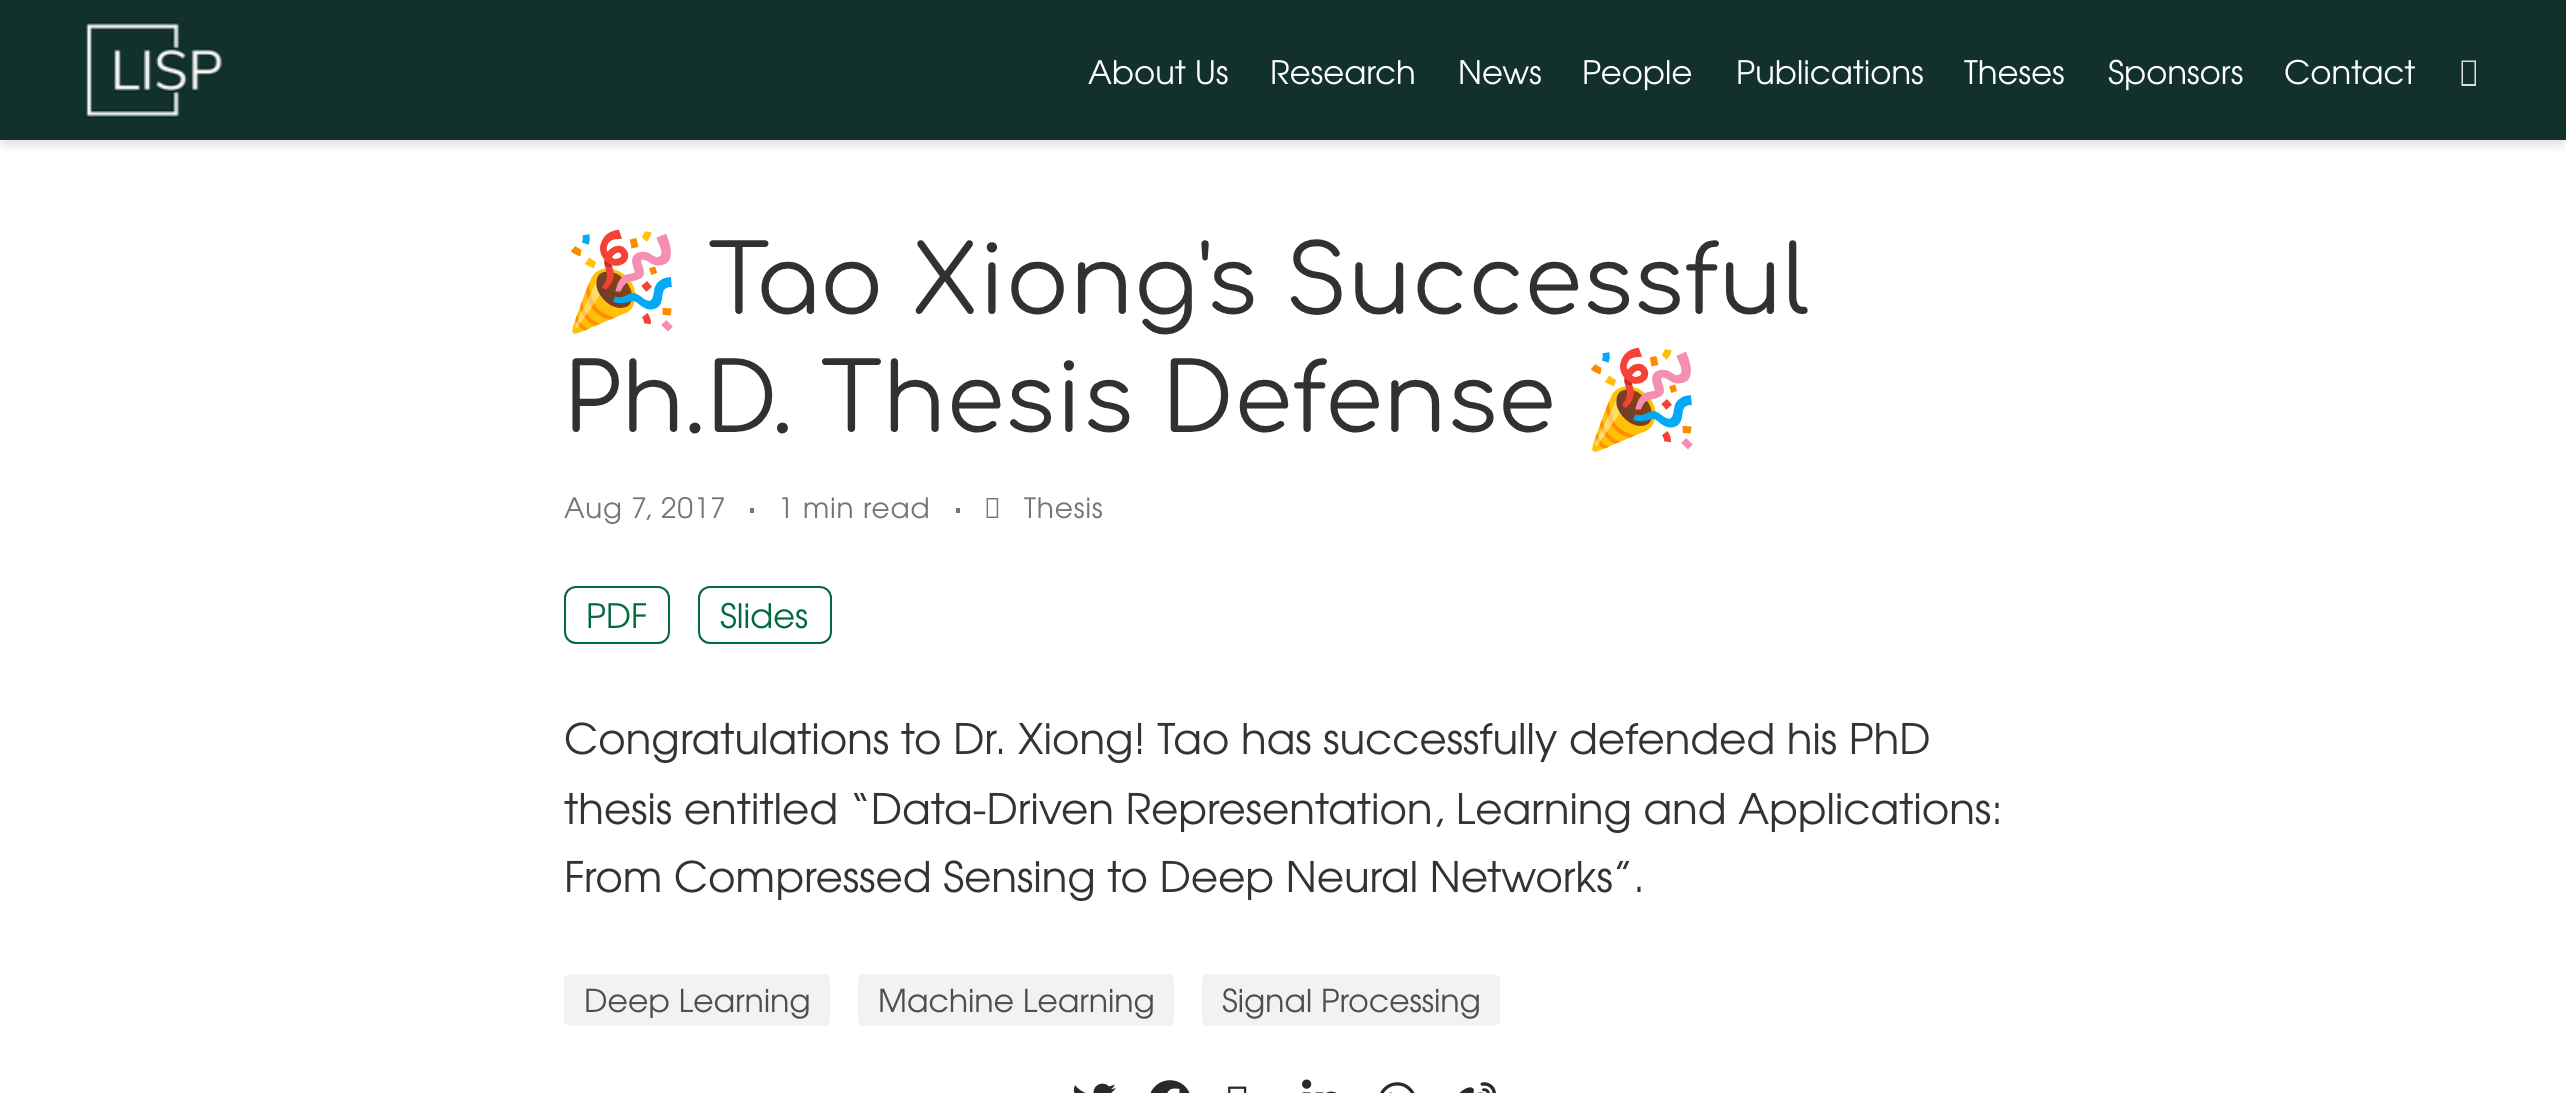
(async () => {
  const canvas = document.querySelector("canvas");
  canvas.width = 2566;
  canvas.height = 1093;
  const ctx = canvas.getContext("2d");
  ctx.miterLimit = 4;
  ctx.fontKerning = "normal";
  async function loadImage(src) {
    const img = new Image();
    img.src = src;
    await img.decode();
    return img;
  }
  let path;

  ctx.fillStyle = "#ffffff";
  ctx.fillRect(0, 0, 2566, 1093);
  ctx.fillStyle = "rgba(0, 0, 0, 0.11)";
  ctx.filter = "blur(5px)";
  ctx.beginPath();
  ctx.rect(0, 6, 2566, 140);
  ctx.fill();
  ctx.filter = "none";
  ctx.fillStyle = "#12312b";
  ctx.fillRect(0, 0, 2566, 140);
  ctx.drawImage(await loadImage("img/1.png"), 84, 22, 139, 96);
  ctx.drawImage(await loadImage("img/2.png"), 1088, 60, 140, 25);
  ctx.drawImage(await loadImage("img/3.png"), 1272, 60, 142, 25);
  ctx.drawImage(await loadImage("img/4.png"), 1460, 60, 81, 25);
  ctx.drawImage(await loadImage("img/5.png"), 1584, 60, 108, 31);
  ctx.drawImage(await loadImage("img/6.png"), 1738, 60, 185, 25);
  ctx.drawImage(await loadImage("img/7.png"), 1964, 60, 100, 25);
  ctx.drawImage(await loadImage("img/8.png"), 2108, 59, 135, 32);
  ctx.drawImage(await loadImage("img/9.png"), 2285, 59, 130, 26);
  ctx.fillStyle = "#dbe0df";
  path = new Path2D("M2461.5 86V60.5H2476V86ZM2463 84H2474.5V62H2463Z");
  ctx.fill(path);
  ctx.drawImage(await loadImage("img/10.png"), 564, 497, 160, 27);
  ctx.fillStyle = "#757575";
  ctx.fillRect(750, 508, 4, 5);
  ctx.drawImage(await loadImage("img/11.png"), 782, 497, 146, 22);
  ctx.fillRect(956, 508, 4, 5);
  ctx.drawImage(await loadImage("img/12.png"), 986, 498, 13, 20);
  ctx.drawImage(await loadImage("img/13.png"), 1024, 497, 78, 22);
  ctx.beginPath();
  ctx.roundRect(565, 587, 104, 56, 11);
  ctx.strokeStyle = "#00693e";
  ctx.lineWidth = 2;
  ctx.stroke();
  ctx.drawImage(await loadImage("img/14.png"), 588, 603, 59, 25);
  ctx.beginPath();
  ctx.roundRect(699, 587, 132, 56, 11);
  ctx.stroke();
  ctx.drawImage(await loadImage("img/15.png"), 720, 602, 88, 27);
  ctx.drawImage(await loadImage("img/16.png"), 565, 722, 1364, 41);
  ctx.drawImage(await loadImage("img/17.png"), 564, 792, 1435, 41);
  ctx.drawImage(await loadImage("img/18.png"), 567, 860, 1074, 41);
  ctx.fillStyle = "#f2f2f2";
  ctx.beginPath();
  ctx.roundRect(564, 974, 266, 52, 6);
  ctx.fill();
  ctx.drawImage(await loadImage("img/19.png"), 586, 988, 223, 31);
  ctx.beginPath();
  ctx.roundRect(858, 974, 316, 52, 6);
  ctx.fill();
  ctx.drawImage(await loadImage("img/20.png"), 880, 988, 273, 31);
  ctx.beginPath();
  ctx.roundRect(1202, 974, 298, 52, 6);
  ctx.fill();
  ctx.drawImage(await loadImage("img/21.png"), 1222, 988, 257, 31);
  ctx.drawImage(await loadImage("img/22.png"), 1073, 1083, 43, 10);
  ctx.drawImage(await loadImage("img/23.png"), 1150, 1080, 40, 13);
  ctx.drawImage(await loadImage("img/24.png"), 1228, 1086, 19, 7);
  ctx.drawImage(await loadImage("img/25.png"), 1302, 1079, 35, 14);
  ctx.drawImage(await loadImage("img/26.png"), 1380, 1082, 35, 11);
  ctx.drawImage(await loadImage("img/27.png"), 1459, 1082, 37, 11);
  ctx.font = "94.5px Noto Color Emoji";
  ctx.fillStyle = "#313131";
  ctx.fillText("🎉", 563, 314);
  ctx.font = "94.5px Comfortaa";
  ctx.fillText("Tao Xiong's Successful", 708, 314);
  ctx.fillText("Ph.D. Thesis Defense", 563, 432);
  ctx.font = "94.5px Noto Color Emoji";
  ctx.fillText("🎉", 1583, 432);
})();
